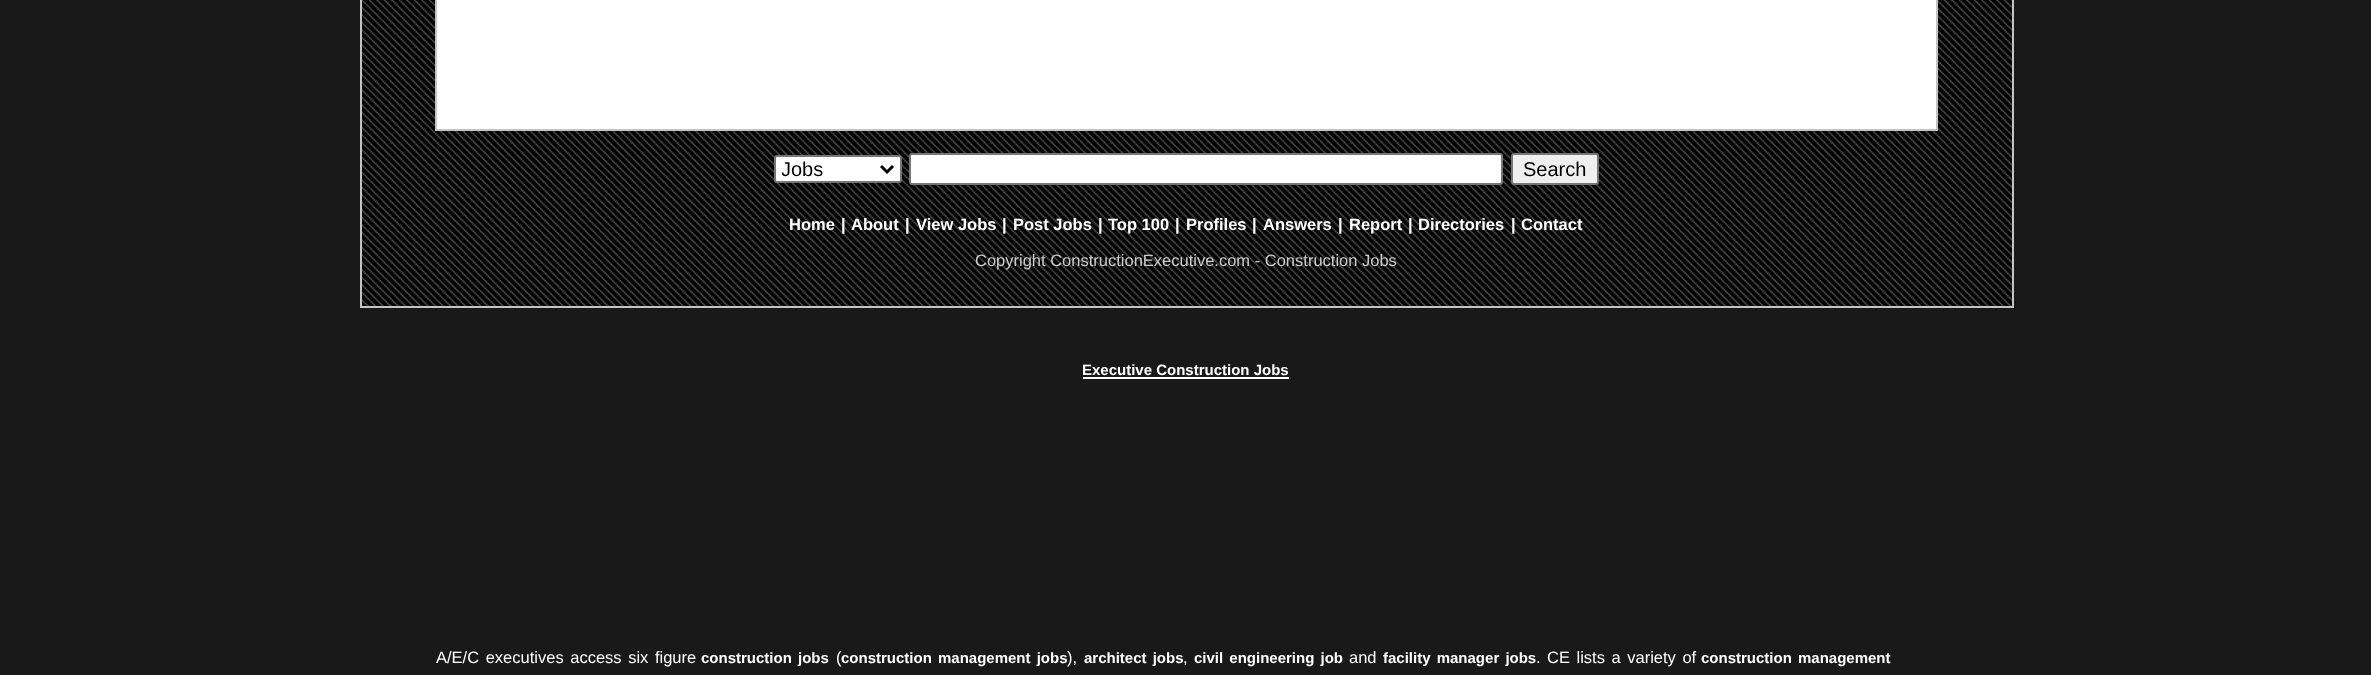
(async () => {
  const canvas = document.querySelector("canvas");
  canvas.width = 2371;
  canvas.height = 675;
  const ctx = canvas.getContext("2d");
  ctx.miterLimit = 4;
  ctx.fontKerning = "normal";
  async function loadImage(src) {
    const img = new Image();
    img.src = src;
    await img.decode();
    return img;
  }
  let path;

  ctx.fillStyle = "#191919";
  ctx.fillRect(0, 0, 2371, 675);
  ctx.drawImage(await loadImage("img/1.png"), 362, 0, 1650, 306);
  for (const [x, y, w, h, color] of [
    [2012, 0, 2, 308, "#c4c4c4"],
    [360, 306, 1653, 2, "#c4c4c4"],
    [360, 0, 2, 308, "#c4c4c4"],
  ]) {
    ctx.fillStyle = color;
    ctx.fillRect(x, y, w, h);
  }
  ctx.fillStyle = "#ffffff";
  ctx.beginPath();
  ctx.rect(436, -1, 1501, 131);
  ctx.fill();
  ctx.strokeStyle = "#c4c4c4";
  ctx.lineWidth = 2;
  ctx.stroke();
  ctx.beginPath();
  ctx.roundRect(775, 156, 126, 26, 2);
  ctx.fill();
  ctx.strokeStyle = "#767676";
  ctx.stroke();
  path = new Path2D("M881 166L887 172L893 166");
  ctx.strokeStyle = "#000000";
  ctx.lineWidth = 3;
  ctx.stroke(path);
  ctx.beginPath();
  ctx.roundRect(910, 154, 592, 30, 2);
  ctx.fill();
  ctx.strokeStyle = "#767676";
  ctx.lineWidth = 2;
  ctx.stroke();
  ctx.fillStyle = "#efefef";
  ctx.beginPath();
  ctx.roundRect(1512, 154, 86, 30, 2);
  ctx.fill();
  ctx.stroke();
  ctx.fillStyle = "#ffffff";
  ctx.fillRect(1083, 377, 206, 2);
  ctx.save();
  ctx.beginPath();
  ctx.rect(782, 156, 94, 26);
  ctx.clip();
  ctx.font = "20px Liberation Sans";
  ctx.fillStyle = "#000000";
  ctx.fillText("Jobs", 781, 176);
  ctx.restore();
  ctx.font = "20px Liberation Sans";
  ctx.fillStyle = "#000000";
  ctx.fillText("Search", 1523, 176);
  ctx.font = "bold 16.5px Liberation Sans";
  ctx.fillStyle = "#ffffff";
  for (const [text, x, y] of [
    ["Home", 789, 230],
    ["|", 841, 230],
    ["About", 851, 230],
    ["|", 905, 230],
    ["View Jobs", 916, 230],
    ["|", 1002, 230],
    ["Post Jobs", 1013, 230],
    ["|", 1098, 230],
    ["Top 100", 1108, 230],
    ["|", 1175, 230],
    ["Profiles", 1186, 230],
    ["|", 1252, 230],
    ["Answers", 1263, 230],
    ["|", 1338, 230],
    ["Report", 1349, 230],
    ["|", 1408, 230],
    ["Directories", 1418, 230],
    ["|", 1511, 230],
    ["Contact", 1521, 230],
  ]) {
    ctx.fillText(text, x, y);
  }
  ctx.font = "16.5px Liberation Sans";
  ctx.fillStyle = "#cccccc";
  ctx.fillText("Copyright ConstructionExecutive.com - Construction Jobs", 975, 266);
  ctx.font = "bold 15px Liberation Sans";
  ctx.fillStyle = "#ffffff";
  ctx.fillText("Executive Construction Jobs", 1082, 375);
  ctx.wordSpacing = "2px";
  ctx.font = "16.5px Liberation Sans";
  ctx.fillText("A/E/C executives access six figure", 436, 663);
  ctx.font = "bold 15px Liberation Sans";
  ctx.fillText("construction jobs", 701, 663);
  ctx.wordSpacing = "0px";
  ctx.font = "16.5px Liberation Sans";
  ctx.fillText("(", 836, 663);
  ctx.wordSpacing = "2px";
  ctx.font = "bold 15px Liberation Sans";
  ctx.fillText("construction management jobs", 841, 663);
  ctx.wordSpacing = "0px";
  ctx.font = "16.5px Liberation Sans";
  ctx.fillText("),", 1067, 663);
  ctx.wordSpacing = "2px";
  ctx.font = "bold 15px Liberation Sans";
  ctx.fillText("architect jobs", 1084, 663);
  ctx.wordSpacing = "0px";
  ctx.font = "16.5px Liberation Sans";
  ctx.fillText(",", 1183, 663);
  ctx.wordSpacing = "2px";
  ctx.font = "bold 15px Liberation Sans";
  ctx.fillText("civil engineering job", 1194, 663);
  ctx.wordSpacing = "0px";
  ctx.font = "16.5px Liberation Sans";
  ctx.fillText("and", 1349, 663);
  ctx.wordSpacing = "2px";
  ctx.font = "bold 15px Liberation Sans";
  ctx.fillText("facility manager jobs", 1383, 663);
  ctx.wordSpacing = "0px";
  ctx.font = "16.5px Liberation Sans";
  ctx.fillText(".", 1536, 663);
  ctx.wordSpacing = "2px";
  ctx.fillText("CE lists a variety of", 1547, 663);
  ctx.font = "bold 15px Liberation Sans";
  ctx.fillText("construction management", 1701, 663);
})();
